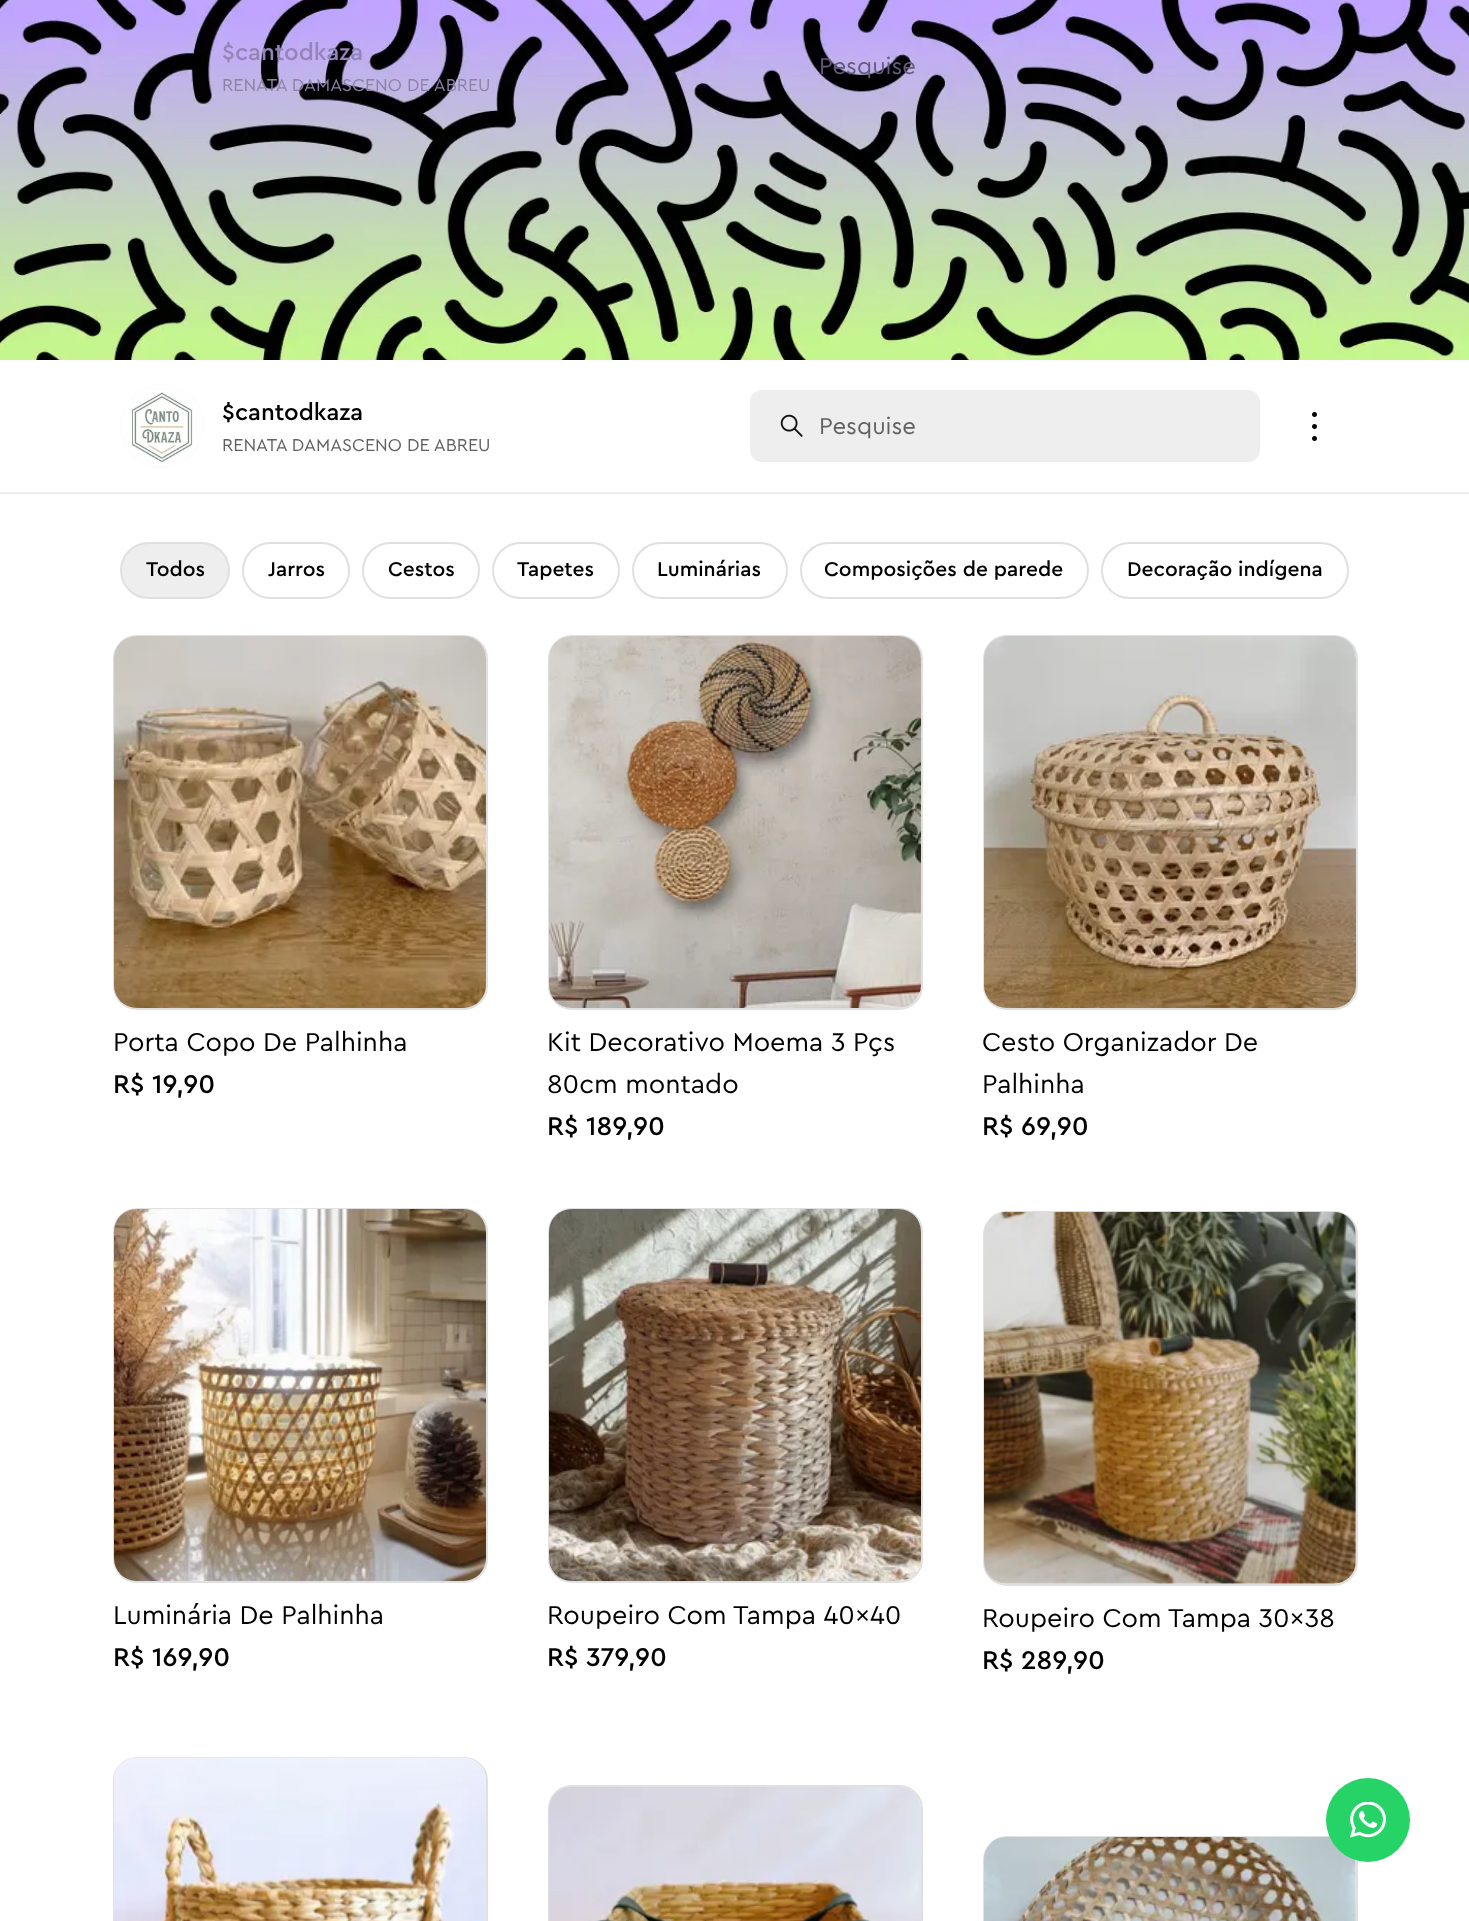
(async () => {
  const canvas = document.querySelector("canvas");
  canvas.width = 1469;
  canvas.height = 1921;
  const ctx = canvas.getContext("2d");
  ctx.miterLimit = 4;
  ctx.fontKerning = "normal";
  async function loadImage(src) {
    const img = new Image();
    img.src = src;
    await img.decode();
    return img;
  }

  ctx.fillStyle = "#ffffff";
  ctx.fillRect(0, 0, 1469, 1921);
  ctx.drawImage(await loadImage("img/1.png"), 0, 0, 1469, 360);
  ctx.fillStyle = "#eeeeee";
  ctx.fillRect(0, 492, 1469, 2);
  ctx.beginPath();
  ctx.arc(162, 426, 42, 0, Math.PI * 2);
  ctx.fill();
  ctx.drawImage(await loadImage("img/2.png"), 120, 384, 84, 84);
  ctx.beginPath();
  ctx.roundRect(751.5, 391.5, 507, 69, 10.5);
  ctx.fill();
  ctx.strokeStyle = "#eeeeee";
  ctx.lineWidth = 3;
  ctx.stroke();
  ctx.drawImage(await loadImage("img/3.png"), 780, 414, 23, 23);
  ctx.drawImage(await loadImage("img/4.png"), 1312, 412, 5, 29);
  ctx.beginPath();
  ctx.roundRect(121, 543, 108, 55, 27.5);
  ctx.fill();
  ctx.strokeStyle = "#e0e0e0";
  ctx.lineWidth = 2;
  ctx.stroke();
  ctx.beginPath();
  ctx.roundRect(243, 543, 106, 55, 27.5);
  ctx.stroke();
  ctx.beginPath();
  ctx.roundRect(363, 543, 116, 55, 27.5);
  ctx.stroke();
  ctx.beginPath();
  ctx.roundRect(493, 543, 126, 55, 27.5);
  ctx.stroke();
  ctx.beginPath();
  ctx.roundRect(633, 543, 154, 55, 27.5);
  ctx.stroke();
  ctx.beginPath();
  ctx.roundRect(801, 543, 287, 55, 27.5);
  ctx.stroke();
  ctx.beginPath();
  ctx.roundRect(1102, 543, 246, 55, 27.5);
  ctx.stroke();
  ctx.beginPath();
  ctx.roundRect(114, 636, 373, 373, 23);
  ctx.stroke();
  ctx.drawImage(await loadImage("img/5.png"), 114, 636, 372, 372);
  ctx.beginPath();
  ctx.roundRect(549, 636, 373, 373, 23);
  ctx.stroke();
  ctx.drawImage(await loadImage("img/6.png"), 549, 636, 372, 372);
  ctx.beginPath();
  ctx.roundRect(984, 636, 373, 373, 23);
  ctx.stroke();
  ctx.drawImage(await loadImage("img/7.png"), 984, 636, 372, 372);
  ctx.beginPath();
  ctx.roundRect(114, 1209, 373, 373, 23);
  ctx.stroke();
  ctx.drawImage(await loadImage("img/8.png"), 114, 1209, 372, 372);
  ctx.beginPath();
  ctx.roundRect(549, 1209, 373, 373, 23);
  ctx.stroke();
  ctx.drawImage(await loadImage("img/9.png"), 549, 1209, 372, 372);
  ctx.beginPath();
  ctx.roundRect(984, 1212, 373, 373, 23);
  ctx.stroke();
  ctx.beginPath();
  ctx.roundRect(984, 1212, 372, 372, 23);
  ctx.fill();
  ctx.drawImage(await loadImage("img/10.png"), 984, 1211, 372, 373);
  ctx.beginPath();
  ctx.roundRect(114, 1758, 373, 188, 23);
  ctx.stroke();
  ctx.beginPath();
  ctx.roundRect(114, 1758, 372, 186, 23);
  ctx.fill();
  ctx.drawImage(await loadImage("img/11.png"), 114, 1757, 372, 164);
  ctx.beginPath();
  ctx.roundRect(549, 1786, 373, 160, 23);
  ctx.stroke();
  ctx.drawImage(await loadImage("img/12.png"), 549, 1787, 372, 134);
  ctx.beginPath();
  ctx.roundRect(984, 1837, 373, 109, 23);
  ctx.stroke();
  ctx.drawImage(await loadImage("img/13.png"), 984, 1837, 372, 84);
  ctx.fillStyle = "#25d366";
  ctx.beginPath();
  ctx.arc(1368, 1820, 42, 0, Math.PI * 2);
  ctx.fill();
  ctx.drawImage(await loadImage("img/14.png"), 1350, 1802, 36, 36);
  ctx.font = "500 24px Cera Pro";
  ctx.fillStyle = "#9384b9";
  ctx.fillText("$cantodkaza", 222, 60);
  ctx.font = "18px Cera Pro";
  ctx.fillStyle = "#8b82a6";
  ctx.fillText("RENATA DAMASCENO DE ABREU", 222, 91);
  ctx.font = "24px Cera Pro";
  ctx.fillStyle = "#635b7b";
  ctx.fillText("Pesquise", 819, 74);
  ctx.font = "500 24px Cera Pro";
  ctx.fillStyle = "#000000";
  ctx.fillText("$cantodkaza", 222, 420);
  ctx.font = "18px Cera Pro";
  ctx.fillStyle = "#616161";
  ctx.fillText("RENATA DAMASCENO DE ABREU", 222, 451);
  ctx.font = "24px Cera Pro";
  ctx.fillText("Pesquise", 819, 434);
  ctx.font = "500 21px Cera Pro";
  ctx.fillStyle = "#000000";
  for (const [text, x, y] of [
    ["Todos", 146, 576],
    ["Jarros", 268, 576],
    ["Cestos", 388, 576],
    ["Tapetes", 517, 576],
    ["Luminárias", 657, 576],
    ["Composições de parede", 824, 576],
    ["Decoração indígena", 1127, 576],
  ]) {
    ctx.fillText(text, x, y);
  }
  ctx.font = "27px Cera Pro";
  ctx.fillText("Porta Copo De Palhinha", 113, 1051);
  ctx.font = "500 27px Cera Pro";
  ctx.fillText("R$ 19,90", 113, 1093);
  ctx.font = "27px Cera Pro";
  ctx.fillText("Kit Decorativo Moema 3 Pçs", 547, 1051);
  ctx.fillText("80cm montado", 547, 1093);
  ctx.font = "500 27px Cera Pro";
  ctx.fillText("R$ 189,90", 547, 1135);
  ctx.font = "27px Cera Pro";
  ctx.fillText("Cesto Organizador De", 982, 1051);
  ctx.fillText("Palhinha", 982, 1093);
  ctx.font = "500 27px Cera Pro";
  ctx.fillText("R$ 69,90", 982, 1135);
  ctx.font = "27px Cera Pro";
  ctx.fillText("Luminária De Palhinha", 113, 1624);
  ctx.font = "500 27px Cera Pro";
  ctx.fillText("R$ 169,90", 113, 1666);
  ctx.font = "27px Cera Pro";
  ctx.fillText("Roupeiro Com Tampa 40x40", 547, 1624);
  ctx.font = "500 27px Cera Pro";
  ctx.fillText("R$ 379,90", 547, 1666);
  ctx.font = "27px Cera Pro";
  ctx.fillText("Roupeiro Com Tampa 30x38", 982, 1627);
  ctx.font = "500 27px Cera Pro";
  ctx.fillText("R$ 289,90", 982, 1669);
})();
